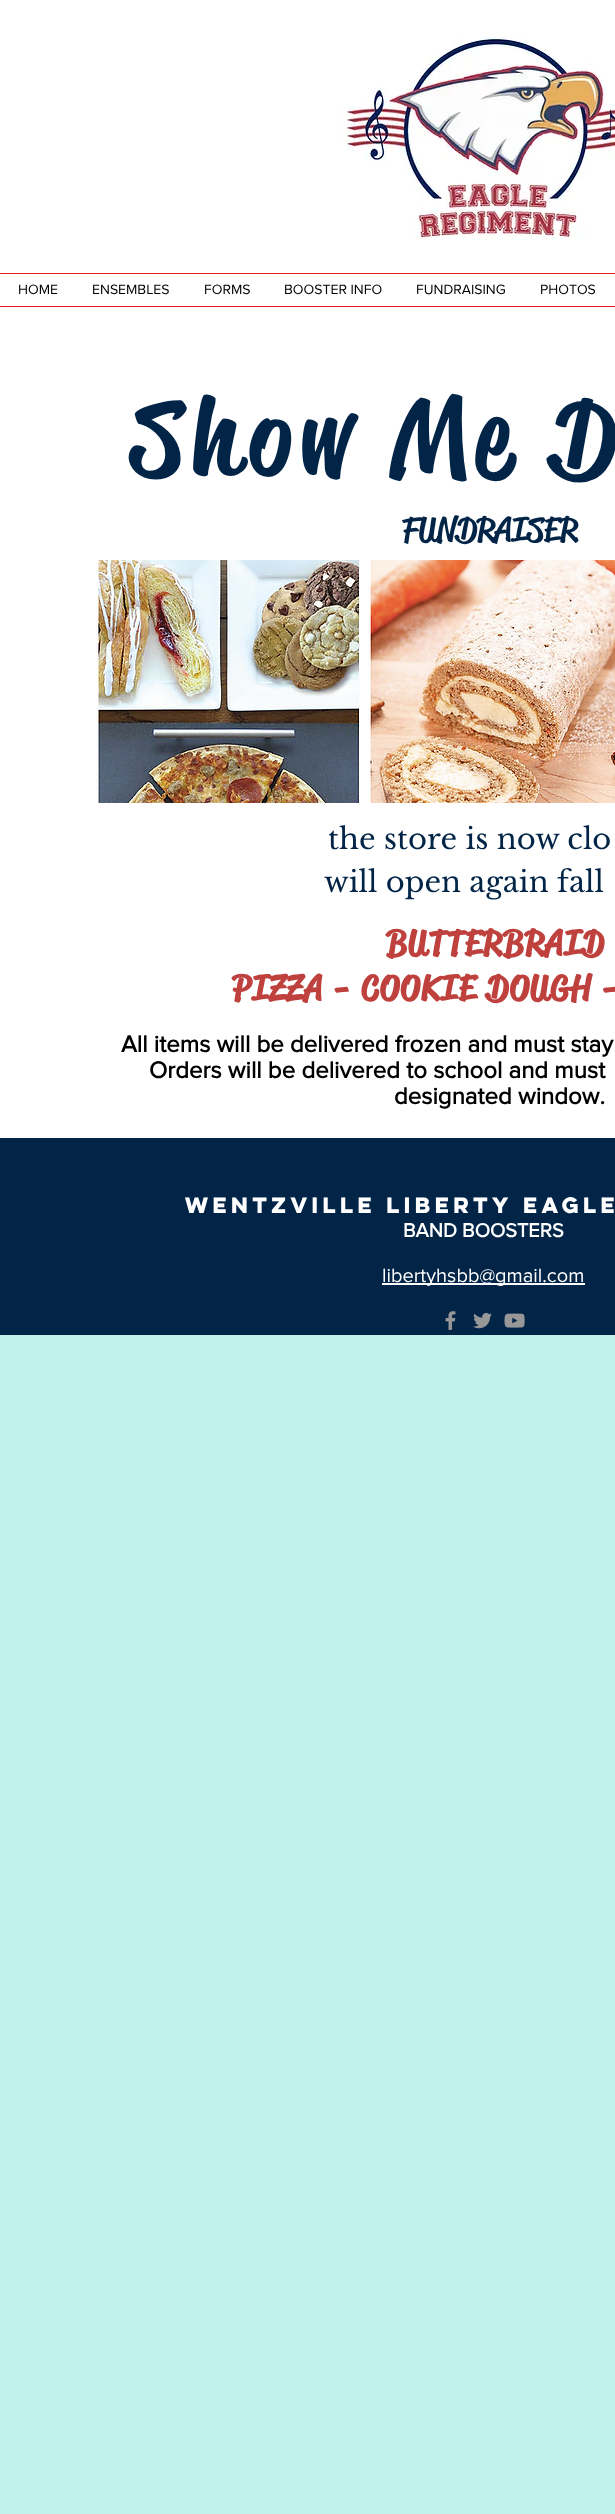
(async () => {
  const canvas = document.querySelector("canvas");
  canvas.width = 615;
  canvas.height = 2514;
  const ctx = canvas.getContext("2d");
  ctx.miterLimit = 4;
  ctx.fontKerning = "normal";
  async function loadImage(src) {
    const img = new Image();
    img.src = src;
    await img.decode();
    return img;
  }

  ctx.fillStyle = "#c1f3ed";
  ctx.fillRect(0, 0, 615, 2514);
  ctx.fillStyle = "#ffffff";
  ctx.fillRect(0, 0, 615, 1138);
  ctx.drawImage(await loadImage("img/1.png"), 342, 36, 273, 204);
  ctx.fillStyle = "#e21c21";
  ctx.fillRect(0, 273, 615, 1);
  ctx.fillRect(0, 306, 615, 1);
  ctx.drawImage(await loadImage("img/2.png"), 96, 560, 519, 243);
  ctx.fillStyle = "#012447";
  ctx.fillRect(0, 1138, 615, 197);
  ctx.fillStyle = "#ffffff";
  ctx.fillRect(382, 1283, 203, 2);
  ctx.drawImage(await loadImage("img/3.png"), 445, 1311, 11, 19);
  ctx.drawImage(await loadImage("img/4.png"), 473, 1312, 19, 17);
  ctx.drawImage(await loadImage("img/5.png"), 504, 1313, 21, 15);
  ctx.font = "14px 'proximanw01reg'";
  ctx.fillStyle = "#000000";
  for (const [text, x, y] of [
    ["HOME", 18, 294],
    ["ENSEMBLES", 92, 294],
    ["FORMS", 204, 294],
    ["BOOSTER INFO", 284, 294],
    ["FUNDRAISING", 416, 294],
    ["PHOTOS", 540, 294],
  ]) {
    ctx.fillText(text, x, y);
  }
  ctx.letterSpacing = "8.5px";
  ctx.font = "500 104px 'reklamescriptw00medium'";
  ctx.fillStyle = "#012447";
  ctx.fillText("Show Me D", 131, 473);
  ctx.letterSpacing = "0px";
  ctx.font = "500 34px 'reklamescriptw00medium'";
  ctx.fillText("FUNDRAISER", 402, 541);
  ctx.font = "29px Libre Baskerville";
  ctx.fillText("the store is now clo", 328, 849);
  ctx.fillText("will open again fall", 324, 892);
  ctx.letterSpacing = "1.75px";
  ctx.font = "bold 35px 'reklamescriptw00medium'";
  ctx.fillStyle = "#bf413d";
  ctx.fillText("BUTTERBRAID", 386, 955);
  ctx.fillText("PIZZA - COOKIE DOUGH -", 232, 1000);
  ctx.letterSpacing = "0px";
  ctx.font = "bold 24px 'proximanw01reg'";
  ctx.fillStyle = "#000000";
  for (const [text, x, y] of [
    ["All items will be delivered frozen and must stay", 121, 1052],
    ["Orders will be delivered to school and must", 149, 1078],
    ["designated window.", 394, 1104],
  ]) {
    ctx.fillText(text, x, y);
  }
  ctx.font = "bold 20px 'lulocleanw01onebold'";
  ctx.fillStyle = "#ffffff";
  ctx.fillText("WENTZVILLE LIBERTY EAGLE", 185, 1213);
  ctx.font = "bold 20px 'proximanw01reg'";
  ctx.fillText("BAND BOOSTERS", 403, 1237);
  ctx.font = "20px 'proximanw01reg'";
  ctx.fillText("libertyhsbb@gmail.com", 382, 1282);
})();
